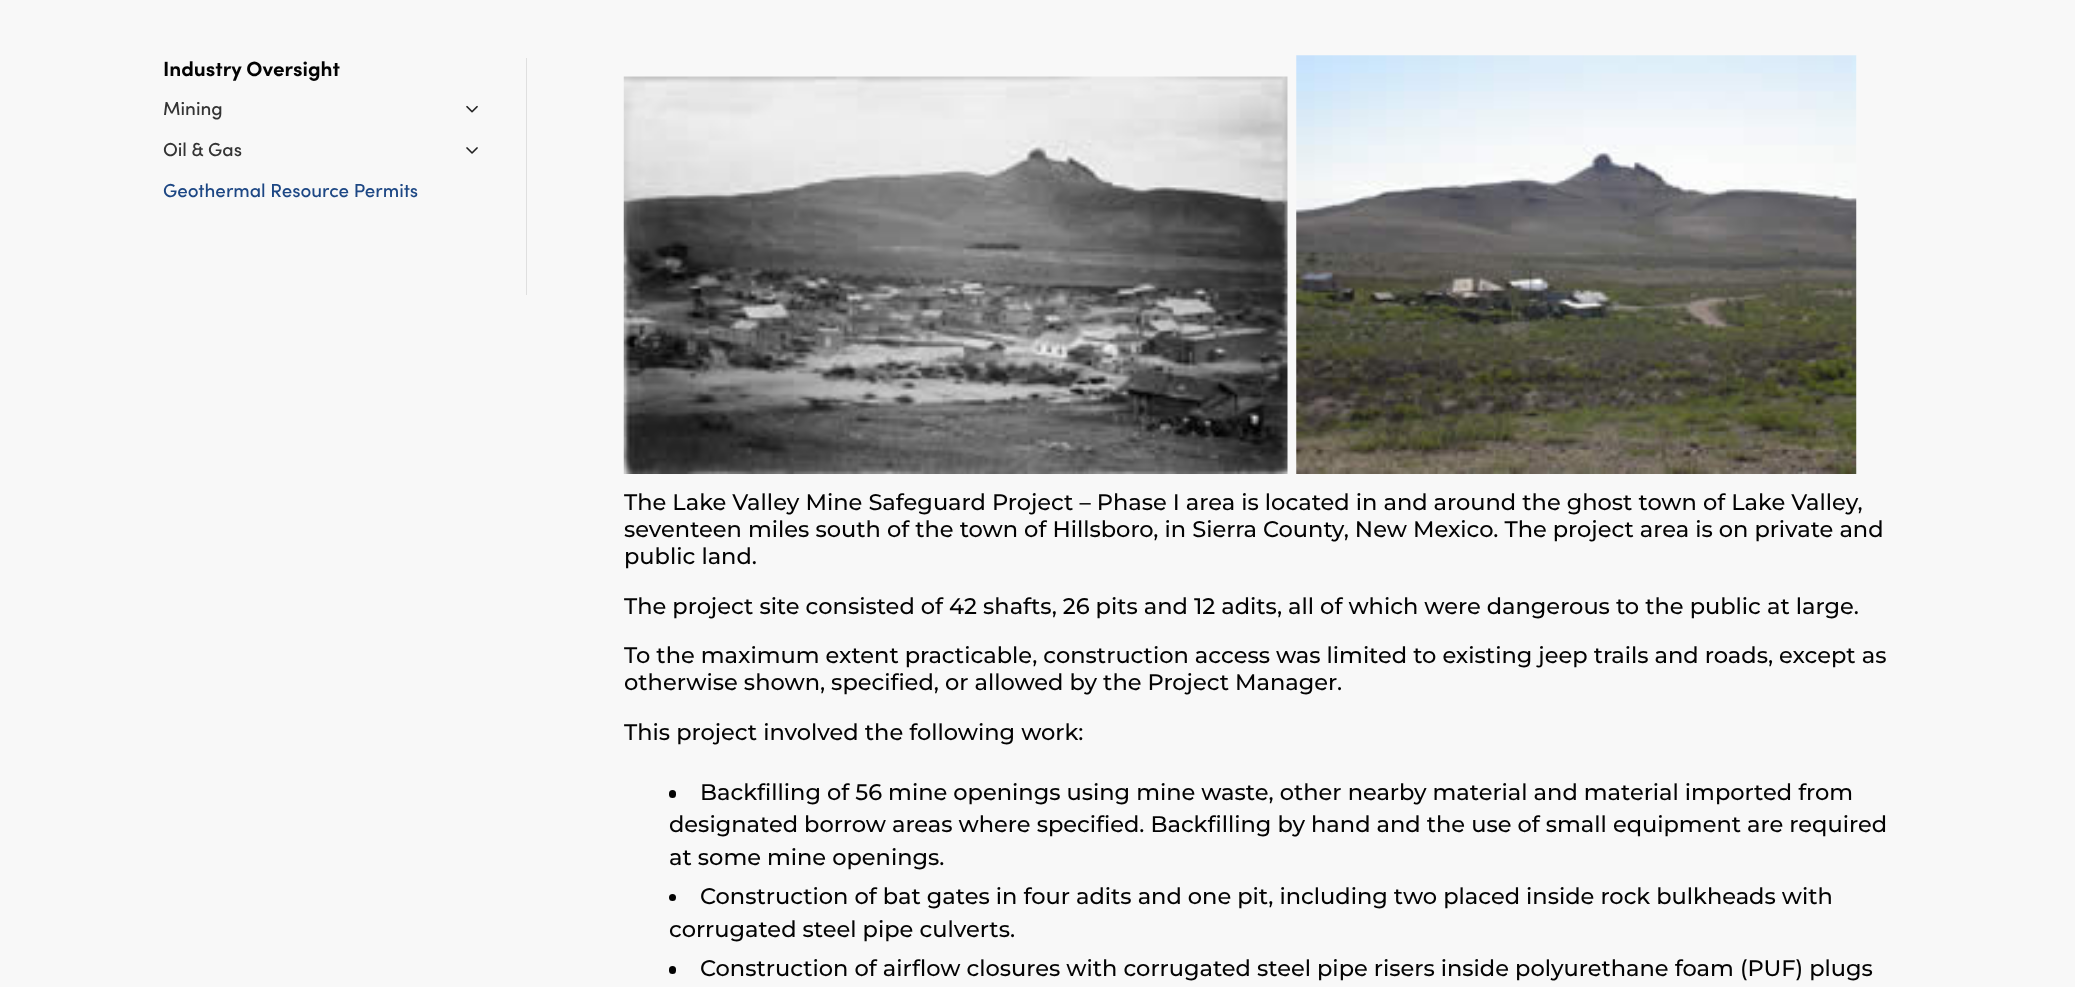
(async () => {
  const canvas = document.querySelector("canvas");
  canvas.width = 2075;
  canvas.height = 987;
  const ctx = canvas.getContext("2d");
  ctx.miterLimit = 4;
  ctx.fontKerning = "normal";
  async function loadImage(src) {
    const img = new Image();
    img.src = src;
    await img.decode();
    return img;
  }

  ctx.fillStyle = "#f8f8f8";
  ctx.fillRect(0, 0, 2075, 987);
  ctx.fillStyle = "#dfdfdf";
  ctx.fillRect(526, 58, 1, 237);
  ctx.drawImage(await loadImage("img/1.png"), 466, 105, 12, 8);
  ctx.drawImage(await loadImage("img/2.png"), 466, 147, 12, 7);
  ctx.drawImage(await loadImage("img/3.png"), 623, 76, 665, 398);
  ctx.drawImage(await loadImage("img/4.png"), 1296, 55, 561, 419);
  ctx.fillStyle = "#030303";
  ctx.beginPath();
  ctx.roundRect(669, 790, 7, 8, 3.5);
  ctx.fill();
  ctx.beginPath();
  ctx.arc(672.5, 897.5, 3.5, 0, Math.PI * 2);
  ctx.fill();
  ctx.beginPath();
  ctx.roundRect(669, 966, 7, 8, 3.5);
  ctx.fill();
  ctx.font = "bold 20.6px Sofia";
  ctx.fillText("Industry Oversight", 163, 76);
  ctx.font = "500 18.75px Sofia";
  ctx.fillStyle = "#343434";
  ctx.fillText("Mining", 163, 115);
  ctx.fillText("Oil & Gas", 163, 156);
  ctx.fillStyle = "#1d4784";
  ctx.fillText("Geothermal Resource Permits", 163, 197);
  ctx.font = "500 22.5px Montserrat";
  ctx.fillStyle = "#030303";
  for (const [text, x, y] of [
    ["The Lake Valley Mine Safeguard Project – Phase I area is located in and around the ghost town of Lake Valley,", 624, 510],
    ["seventeen miles south of the town of Hillsboro, in Sierra County, New Mexico. The project area is on private and", 624, 537],
    ["public land.", 624, 564],
    ["The project site consisted of 42 shafts, 26 pits and 12 adits, all of which were dangerous to the public at large.", 624, 614],
    ["To the maximum extent practicable, construction access was limited to existing jeep trails and roads, except as", 624, 663],
    ["otherwise shown, specified, or allowed by the Project Manager.", 624, 690],
    ["This project involved the following work:", 624, 740],
    ["Backfilling of 56 mine openings using mine waste, other nearby material and material imported from", 700, 800],
    ["designated borrow areas where specified. Backfilling by hand and the use of small equipment are required", 669, 832],
    ["at some mine openings.", 669, 865],
    ["Construction of bat gates in four adits and one pit, including two placed inside rock bulkheads with", 700, 904],
    ["corrugated steel pipe culverts.", 669, 937],
    ["Construction of airflow closures with corrugated steel pipe risers inside polyurethane foam (PUF) plugs", 700, 976],
  ]) {
    ctx.fillText(text, x, y);
  }
})();
